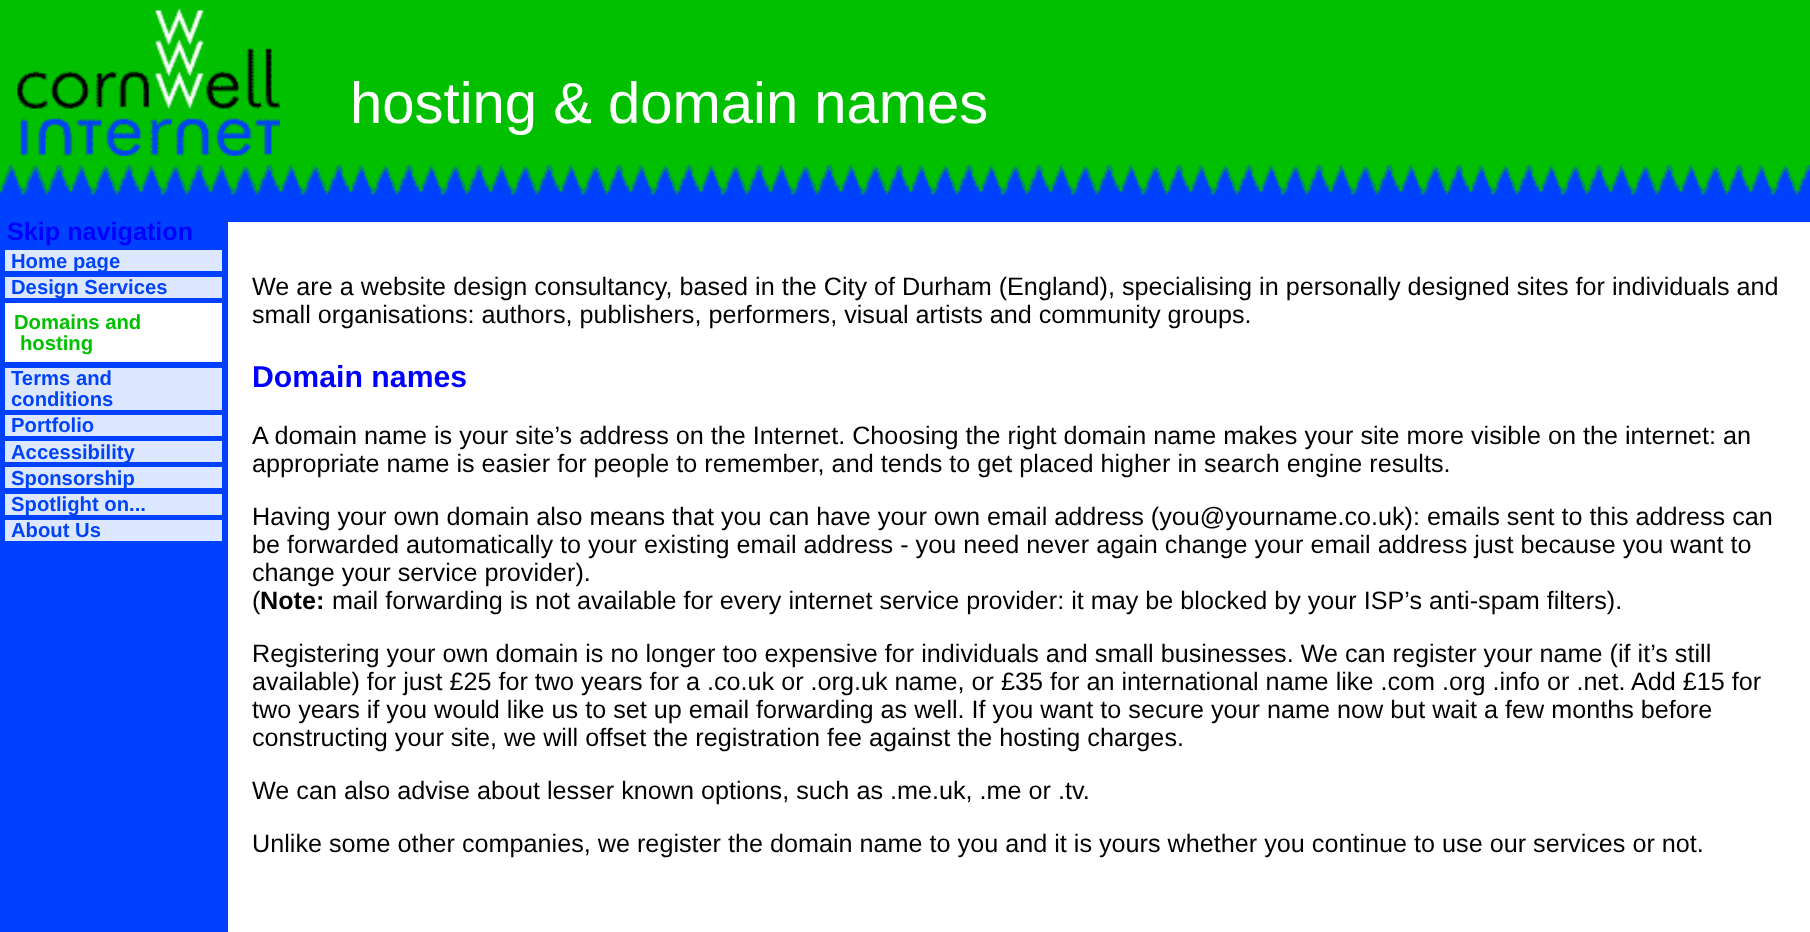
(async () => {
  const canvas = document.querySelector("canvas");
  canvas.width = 1810;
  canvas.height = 932;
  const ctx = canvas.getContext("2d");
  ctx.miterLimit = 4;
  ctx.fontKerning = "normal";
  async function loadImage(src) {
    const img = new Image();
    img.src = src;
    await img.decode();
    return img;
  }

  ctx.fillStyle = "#0040ff";
  ctx.fillRect(0, 0, 1810, 932);
  ctx.fillStyle = "#00c000";
  ctx.fillRect(0, 0, 1810, 165);
  ctx.drawImage(await loadImage("img/1.png"), 17, 8, 263, 148);
  ctx.fillRect(0, 165, 1809, 27);
  ctx.drawImage(await loadImage("img/2.png"), 0, 165, 1810, 52);
  ctx.drawImage(await loadImage("img/3.png"), 0, 165, 70, 28);
  for (const [x, y, w, h, color] of [
    [5, 250, 217, 21, "#dde7ff"],
    [5, 277, 217, 21, "#dde7ff"],
    [5, 303, 217, 59, "#ffffff"],
    [5, 368, 217, 42, "#dde7ff"],
    [5, 415, 217, 21, "#dde7ff"],
    [5, 441, 217, 21, "#dde7ff"],
    [5, 467, 217, 21, "#dde7ff"],
    [5, 494, 217, 21, "#dde7ff"],
    [5, 520, 217, 21, "#dde7ff"],
    [228, 222, 1582, 710, "#ffffff"],
  ]) {
    ctx.fillStyle = color;
    ctx.fillRect(x, y, w, h);
  }
  ctx.font = "58px Liberation Sans";
  ctx.fillText("hosting & domain names", 350, 123);
  ctx.font = "bold 25.2px Liberation Sans";
  ctx.fillStyle = "#0000ff";
  ctx.fillText("Skip navigation", 7, 240);
  ctx.font = "bold 20.25px Liberation Sans";
  ctx.fillStyle = "#0044f5";
  ctx.fillText("Home page", 11, 268);
  ctx.fillText("Design Services", 11, 294);
  ctx.fillStyle = "#00c000";
  ctx.fillText("Domains and", 14, 329);
  ctx.fillText("hosting", 20, 350);
  ctx.fillStyle = "#0044f5";
  for (const [text, x, y] of [
    ["Terms and", 11, 385],
    ["conditions", 11, 406],
    ["Portfolio", 11, 432],
    ["Accessibility", 11, 459],
    ["Sponsorship", 11, 485],
    ["Spotlight on...", 11, 511],
    ["About Us", 11, 537],
  ]) {
    ctx.fillText(text, x, y);
  }
  ctx.font = "25.2px Liberation Sans";
  ctx.fillStyle = "#000000";
  ctx.fillText("We are a website design consultancy, based in the City of Durham (England), specialising in personally designed sites for individuals and", 252, 295);
  ctx.fillText("small organisations: authors, publishers, performers, visual artists and community groups.", 252, 323);
  ctx.font = "bold 30.25px Liberation Sans";
  ctx.fillStyle = "#0000ff";
  ctx.fillText("Domain names", 252, 387);
  ctx.font = "25.2px Liberation Sans";
  ctx.fillStyle = "#000000";
  for (const [text, x, y] of [
    ["A domain name is your site’s address on the Internet. Choosing the right domain name makes your site more visible on the internet: an", 252, 444],
    ["appropriate name is easier for people to remember, and tends to get placed higher in search engine results.", 252, 472],
    ["Having your own domain also means that you can have your own email address (you@yourname.co.uk): emails sent to this address can", 252, 525],
    ["be forwarded automatically to your existing email address - you need never again change your email address just because you want to", 252, 553],
    ["change your service provider).", 252, 581],
    ["(", 252, 609],
  ]) {
    ctx.fillText(text, x, y);
  }
  ctx.font = "bold 25.2px Liberation Sans";
  ctx.fillText("Note:", 260, 609);
  ctx.font = "25.2px Liberation Sans";
  for (const [text, x, y] of [
    ["mail forwarding is not available for every internet service provider: it may be blocked by your ISP’s anti-spam filters).", 332, 609],
    ["Registering your own domain is no longer too expensive for individuals and small businesses. We can register your name (if it’s still", 252, 662],
    ["available) for just £25 for two years for a .co.uk or .org.uk name, or £35 for an international name like .com .org .info or .net. Add £15 for", 252, 690],
    ["two years if you would like us to set up email forwarding as well. If you want to secure your name now but wait a few months before", 252, 718],
    ["constructing your site, we will offset the registration fee against the hosting charges.", 252, 746],
    ["We can also advise about lesser known options, such as .me.uk, .me or .tv.", 252, 799],
    ["Unlike some other companies, we register the domain name to you and it is yours whether you continue to use our services or not.", 252, 852],
  ]) {
    ctx.fillText(text, x, y);
  }
})();
